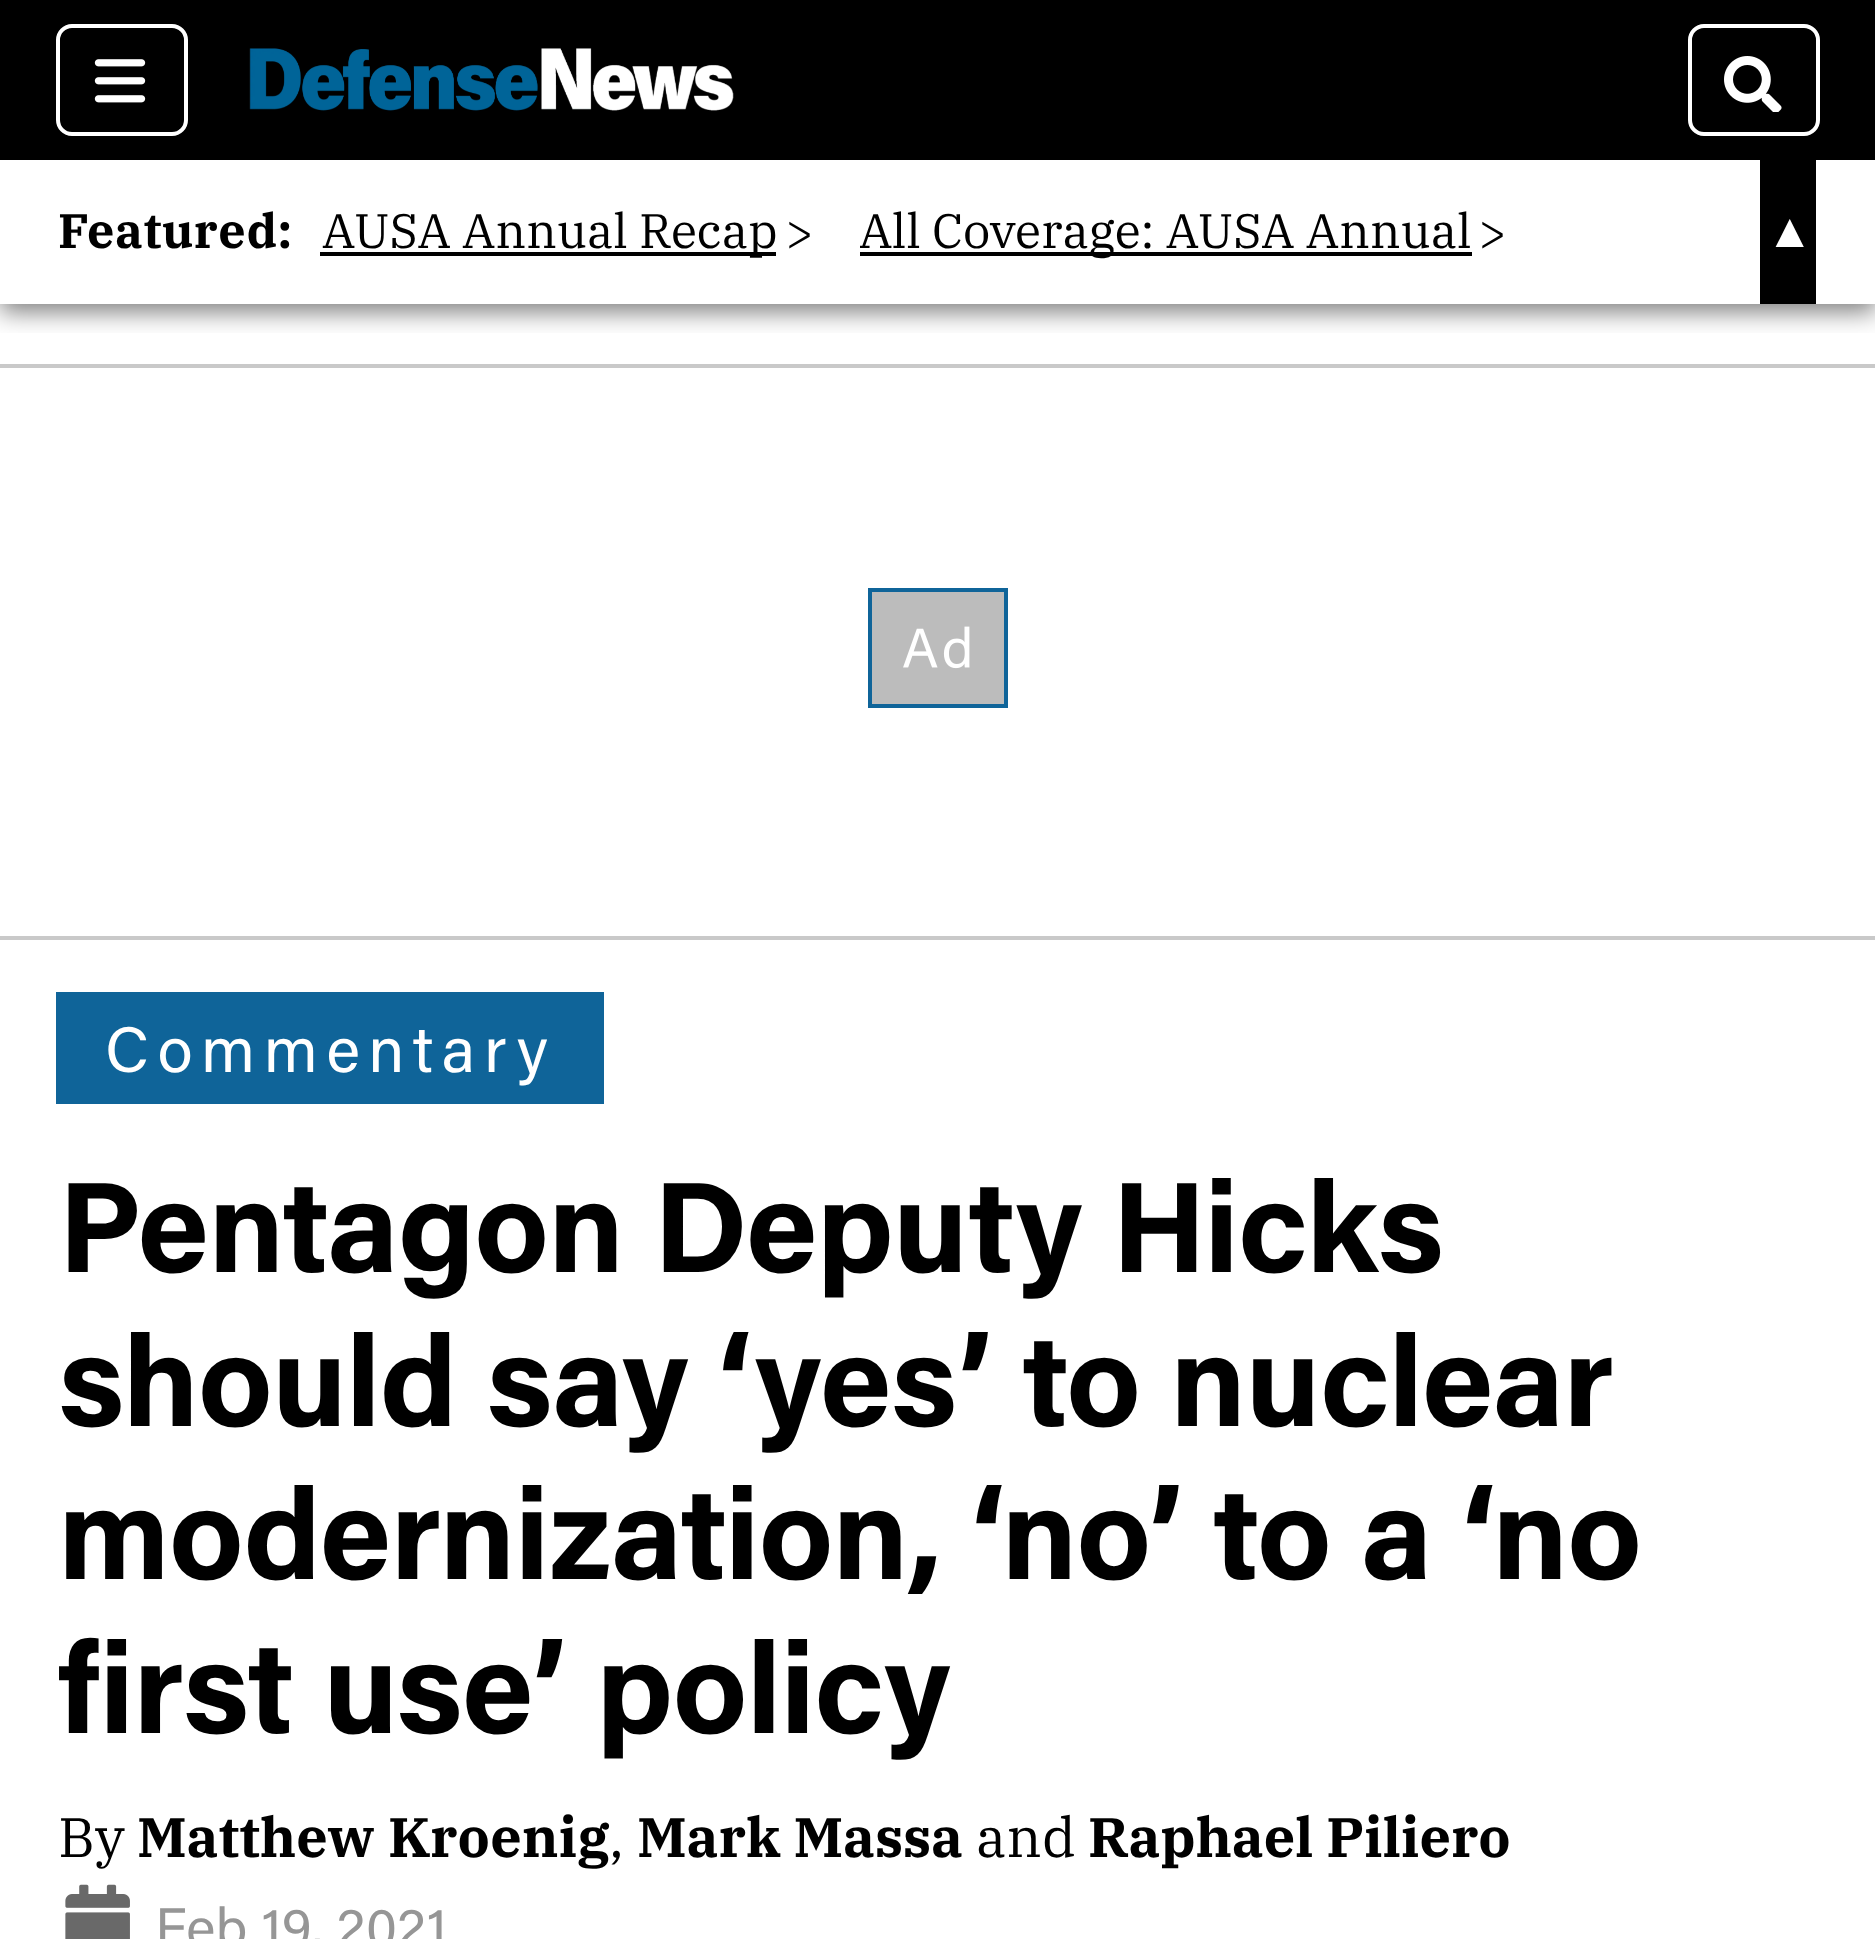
(async () => {
  const canvas = document.querySelector("canvas");
  canvas.width = 1875;
  canvas.height = 1939;
  const ctx = canvas.getContext("2d");
  ctx.miterLimit = 4;
  ctx.fontKerning = "normal";
  async function loadImage(src) {
    const img = new Image();
    img.src = src;
    await img.decode();
    return img;
  }

  ctx.fillStyle = "#ffffff";
  ctx.fillRect(0, 0, 1875, 1939);
  ctx.save();
  ctx.beginPath();
  ctx.rect(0, 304, 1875, 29);
  ctx.clip();
  ctx.fillStyle = "rgba(0, 0, 0, 0.5)";
  ctx.filter = "blur(12px)";
  ctx.beginPath();
  ctx.rect(0, 8, 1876, 304);
  ctx.fill();
  ctx.filter = "none";
  ctx.restore();
  ctx.fillStyle = "#000000";
  ctx.fillRect(0, 0, 1875, 160);
  ctx.beginPath();
  ctx.roundRect(58, 26, 128, 108, 14);
  ctx.strokeStyle = "#ffffff";
  ctx.lineWidth = 4;
  ctx.stroke();
  ctx.drawImage(await loadImage("img/1.png"), 94, 59, 52, 44);
  ctx.drawImage(await loadImage("img/2.png"), 249, 48, 485, 63);
  ctx.beginPath();
  ctx.roundRect(1690, 26, 128, 108, 14);
  ctx.stroke();
  ctx.drawImage(await loadImage("img/3.png"), 1724, 56, 58, 56);
  for (const [x, y, w, h, color] of [
    [320, 252, 456, 4, "#000000"],
    [860, 252, 612, 4, "#000000"],
    [1760, 160, 56, 144, "#000000"],
    [0, 364, 1875, 4, "#c9c9c9"],
    [872, 592, 132, 112, "#bcbcbc"],
  ]) {
    ctx.fillStyle = color;
    ctx.fillRect(x, y, w, h);
  }
  ctx.drawImage(await loadImage("img/4.png"), 903, 626, 67, 43);
  ctx.strokeStyle = "#0f6499";
  ctx.strokeRect(870, 590, 136, 116);
  ctx.fillStyle = "#c9c9c9";
  ctx.fillRect(0, 936, 1875, 4);
  ctx.fillStyle = "#0f6499";
  ctx.fillRect(56, 992, 548, 112);
  ctx.drawImage(await loadImage("img/5.png"), 65, 1884, 65, 55);
  ctx.letterSpacing = "0.5px";
  ctx.font = "bold 48.4px IBM Plex Serif";
  ctx.fillStyle = "#000000";
  ctx.fillText("Featured:", 58, 248);
  ctx.letterSpacing = "0px";
  ctx.font = "48.4px IBM Plex Serif";
  ctx.fillText("AUSA Annual Recap", 322, 248);
  ctx.letterSpacing = "-12px";
  ctx.fillText(">", 785, 248);
  ctx.save();
  ctx.beginPath();
  ctx.rect(860, 196, 612, 72);
  ctx.clip();
  ctx.letterSpacing = "0px";
  ctx.fillText("All Coverage: AUSA Annual", 859, 248);
  ctx.restore();
  ctx.fillText(">", 1478, 248);
  ctx.letterSpacing = "1px";
  ctx.font = "48px Liberation Serif";
  ctx.fillStyle = "#ffffff";
  ctx.fillText("▲", 1766, 247);
  ctx.letterSpacing = "8.5px";
  ctx.font = "64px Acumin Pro";
  ctx.fillText("Commentary", 105, 1072);
  ctx.letterSpacing = "-1.1px";
  ctx.font = "bold 128.75px Acumin Pro";
  ctx.fillStyle = "#000000";
  for (const [text, x, y] of [
    ["Pentagon Deputy Hicks", 58, 1272],
    ["should say ‘yes’ to nuclear", 58, 1426],
    ["modernization, ‘no’ to a ‘no", 58, 1579],
    ["first use’ policy", 58, 1733],
  ]) {
    ctx.fillText(text, x, y);
  }
  ctx.letterSpacing = "0px";
  ctx.font = "55.6px IBM Plex Serif";
  ctx.fillText("By", 58, 1857);
  ctx.font = "bold 55.6px IBM Plex Serif";
  ctx.fillText("Matthew Kroenig", 137, 1857);
  ctx.font = "55.6px IBM Plex Serif";
  ctx.fillText(",", 609, 1857);
  ctx.font = "bold 55.6px IBM Plex Serif";
  ctx.fillText("Mark Massa", 637, 1857);
  ctx.font = "55.6px IBM Plex Serif";
  ctx.fillText("and", 976, 1857);
  ctx.font = "bold 55.6px IBM Plex Serif";
  ctx.fillText("Raphael Piliero", 1088, 1857);
  ctx.font = "55.6px Acumin Pro";
  ctx.fillStyle = "#969696";
  ctx.fillText("Feb 19, 2021", 155, 1947);
})();
